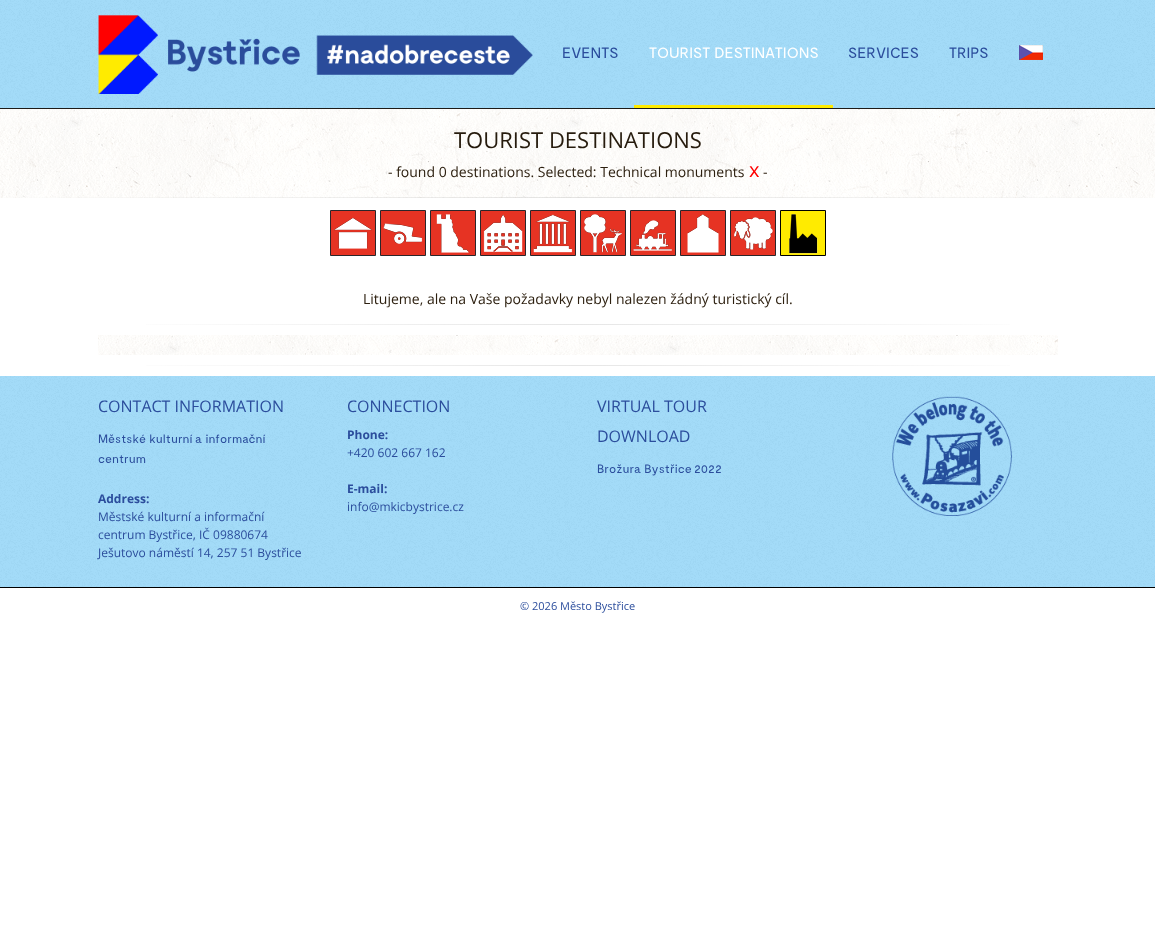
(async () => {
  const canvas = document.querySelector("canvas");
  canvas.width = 1155;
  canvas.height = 939;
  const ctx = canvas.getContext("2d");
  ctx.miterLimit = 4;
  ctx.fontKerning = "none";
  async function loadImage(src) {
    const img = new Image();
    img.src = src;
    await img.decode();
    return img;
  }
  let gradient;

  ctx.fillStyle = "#ffffff";
  ctx.fillRect(0, 0, 1155, 939);
  ctx.fillStyle = "#a1daf8";
  ctx.fillRect(0, 0, 1155, 108);
  ctx.drawImage(await loadImage("img/1.png"), 0, 0, 1155, 108);
  ctx.fillStyle = "#1d1b18";
  ctx.fillRect(0, 108, 1155, 1);
  ctx.drawImage(await loadImage("img/2.png"), 98, 15, 60, 79);
  ctx.drawImage(await loadImage("img/3.png"), 168, 35, 365, 40);
  ctx.fillStyle = "#ffeb00";
  ctx.fillRect(634, 105, 199, 3);
  ctx.drawImage(await loadImage("img/4.png"), 1019, 45, 24, 15);
  ctx.drawImage(await loadImage("img/5.png"), 0, 109, 1155, 89);
  ctx.fillStyle = "#e63323";
  ctx.beginPath();
  ctx.rect(330.5, 210.5, 45, 45);
  ctx.fill();
  ctx.strokeStyle = "#2b262a";
  ctx.stroke();
  ctx.drawImage(await loadImage("img/6.png"), 334, 217, 38, 32);
  ctx.beginPath();
  ctx.rect(380.5, 210.5, 45, 45);
  ctx.fill();
  ctx.stroke();
  ctx.drawImage(await loadImage("img/7.png"), 383, 223, 40, 21);
  ctx.beginPath();
  ctx.rect(430.5, 210.5, 45, 45);
  ctx.fill();
  ctx.stroke();
  ctx.drawImage(await loadImage("img/8.png"), 436, 214, 33, 39);
  ctx.beginPath();
  ctx.rect(480.5, 210.5, 45, 45);
  ctx.fill();
  ctx.stroke();
  ctx.drawImage(await loadImage("img/9.png"), 483, 214, 40, 39);
  ctx.beginPath();
  ctx.rect(530.5, 210.5, 45, 45);
  ctx.fill();
  ctx.stroke();
  ctx.drawImage(await loadImage("img/10.png"), 533, 214, 40, 39);
  ctx.beginPath();
  ctx.rect(580.5, 210.5, 45, 45);
  ctx.fill();
  ctx.stroke();
  ctx.drawImage(await loadImage("img/11.png"), 584, 214, 38, 39);
  ctx.beginPath();
  ctx.rect(630.5, 210.5, 45, 45);
  ctx.fill();
  ctx.stroke();
  ctx.drawImage(await loadImage("img/12.png"), 633, 220, 39, 31);
  ctx.beginPath();
  ctx.rect(680.5, 210.5, 45, 45);
  ctx.fill();
  ctx.stroke();
  ctx.drawImage(await loadImage("img/13.png"), 687, 214, 32, 39);
  ctx.beginPath();
  ctx.rect(730.5, 210.5, 45, 45);
  ctx.fill();
  ctx.stroke();
  ctx.drawImage(await loadImage("img/14.png"), 734, 217, 39, 33);
  ctx.fillStyle = "#ffeb00";
  ctx.beginPath();
  ctx.rect(780.5, 210.5, 45, 45);
  ctx.fill();
  ctx.strokeStyle = "#000000";
  ctx.stroke();
  ctx.drawImage(await loadImage("img/15.png"), 789, 214, 29, 40);
  gradient = ctx.createLinearGradient(98, 325, 1058, 324);
  gradient.addColorStop(0, "#ffffff");
  gradient.addColorStop(0.5, "#e6e6e6");
  gradient.addColorStop(1, "#ffffff");
  ctx.fillStyle = gradient;
  ctx.fillRect(146, 324, 864, 1);
  ctx.drawImage(await loadImage("img/16.png"), 98, 335, 960, 20);
  gradient = ctx.createLinearGradient(98, 366, 1058, 365);
  gradient.addColorStop(0, "#ffffff");
  gradient.addColorStop(0.5, "#e6e6e6");
  gradient.addColorStop(1, "#ffffff");
  ctx.fillStyle = gradient;
  ctx.fillRect(146, 365, 864, 1);
  ctx.fillStyle = "#a1daf8";
  ctx.fillRect(0, 376, 1155, 211);
  ctx.drawImage(await loadImage("img/17.png"), 0, 376, 1155, 211);
  ctx.drawImage(await loadImage("img/18.png"), 892, 396, 120, 120);
  ctx.fillStyle = "#000000";
  ctx.fillRect(0, 587, 1155, 1);
  ctx.font = "15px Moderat";
  ctx.fillStyle = "#2b4d9c";
  ctx.fillText("EVENTS", 562, 58);
  ctx.fillStyle = "#ffffff";
  ctx.fillText("TOURIST DESTINATIONS", 649, 58);
  ctx.fillStyle = "#2b4d9c";
  ctx.fillText("SERVICES", 848, 58);
  ctx.fillText("TRIPS", 949, 58);
  ctx.font = "22px Open Sans";
  ctx.fillStyle = "#261b0d";
  ctx.fillText("TOURIST DESTINATIONS", 454, 148);
  ctx.font = "14px Open Sans";
  ctx.fillStyle = "#2d2010";
  ctx.fillText("- found 0 destinations. Selected: Technical monuments", 388, 177);
  ctx.font = "20px Open Sans";
  ctx.fillStyle = "#ff0000";
  ctx.fillText("x", 749, 177);
  ctx.font = "14px Open Sans";
  ctx.fillStyle = "#2d2010";
  ctx.fillText("-", 763, 177);
  ctx.fillText("Litujeme, ale na Vaše požadavky nebyl nalezen žádný turistický cíl.", 363, 304);
  ctx.font = "16px Open Sans";
  ctx.fillStyle = "#2b4d9c";
  ctx.fillText("CONTACT INFORMATION", 98, 412);
  ctx.font = "12px Moderat";
  ctx.fillText("Městské kulturní", 98, 443);
  ctx.fillText("a informační", 195, 443);
  ctx.fillText("centrum", 98, 463);
  ctx.font = "bold 12px Open Sans";
  ctx.fillText("Address:", 98, 503);
  ctx.font = "12px Open Sans";
  for (const [text, x, y] of [
    ["Městské kulturní a informační", 98, 521],
    ["centrum Bystřice, IČ 09880674", 98, 539],
    ["Ješutovo náměstí 14, 257 51 Bystřice", 98, 557],
  ]) {
    ctx.fillText(text, x, y);
  }
  ctx.font = "16px Open Sans";
  ctx.fillText("CONNECTION", 347, 412);
  ctx.font = "bold 12px Open Sans";
  ctx.fillText("Phone:", 347, 439);
  ctx.font = "12px Open Sans";
  ctx.fillText("+420 602 667 162", 347, 457);
  ctx.font = "bold 12px Open Sans";
  ctx.fillText("E-mail:", 347, 493);
  ctx.font = "12px Open Sans";
  ctx.fillText("info@mkicbystrice.cz", 347, 511);
  ctx.font = "16px Open Sans";
  ctx.fillText("VIRTUAL TOUR", 597, 412);
  ctx.fillText("DOWNLOAD", 597, 442);
  ctx.font = "12px Moderat";
  ctx.fillText("Brožura Bystřice", 597, 473);
  ctx.fillText("2022", 694, 473);
  ctx.font = "11px Open Sans";
  ctx.fillText("© 2026 Město Bystřice", 520, 610);
})();
